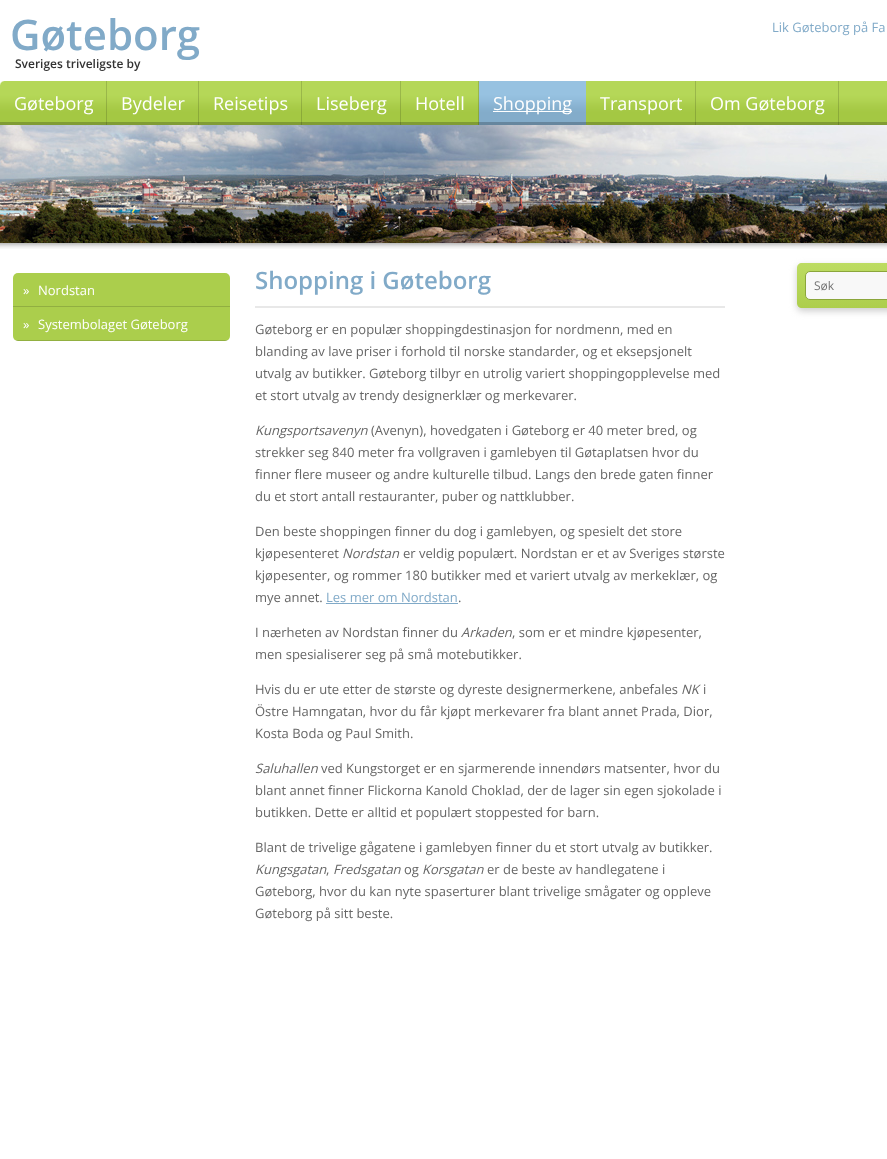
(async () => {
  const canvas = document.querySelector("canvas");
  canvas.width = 887;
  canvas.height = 1159;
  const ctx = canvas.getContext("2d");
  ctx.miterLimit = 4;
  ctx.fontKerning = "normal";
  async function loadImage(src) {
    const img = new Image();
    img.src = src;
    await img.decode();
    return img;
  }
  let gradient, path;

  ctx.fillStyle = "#ffffff";
  ctx.fillRect(0, 0, 887, 1159);
  ctx.drawImage(await loadImage("img/1.png"), 0, 81, 887, 44);
  ctx.drawImage(await loadImage("img/2.png"), 0, 81, 5, 5);
  for (const [x, y, w, h, color] of [
    [106, 81, 1, 44, "rgba(0, 0, 0, 0.15)"],
    [198, 81, 1, 44, "rgba(0, 0, 0, 0.15)"],
    [301, 81, 1, 44, "rgba(0, 0, 0, 0.15)"],
    [400, 81, 1, 44, "rgba(0, 0, 0, 0.15)"],
    [478, 81, 1, 44, "rgba(0, 0, 0, 0.15)"],
  ]) {
    ctx.fillStyle = color;
    ctx.fillRect(x, y, w, h);
  }
  ctx.drawImage(await loadImage("img/3.png"), 479, 81, 107, 44);
  for (const [x, y, w, h, color] of [
    [493, 111, 79, 1, "#ffffff"],
    [695, 81, 1, 44, "rgba(0, 0, 0, 0.15)"],
    [838, 81, 1, 44, "rgba(0, 0, 0, 0.15)"],
  ]) {
    ctx.fillStyle = color;
    ctx.fillRect(x, y, w, h);
  }
  ctx.drawImage(await loadImage("img/4.png"), 0, 125, 887, 118);
  ctx.drawImage(await loadImage("img/5.png"), 0, 243, 887, 6);
  ctx.fillStyle = "#abce4c";
  ctx.beginPath();
  ctx.roundRect(13, 273, 217, 34, [5, 5, 0, 0]);
  ctx.fill();
  ctx.fillStyle = "#91af41";
  ctx.fillRect(13, 306, 217, 1);
  ctx.fillStyle = "#abce4c";
  ctx.beginPath();
  ctx.roundRect(13, 307, 217, 34, [0, 0, 5, 5]);
  ctx.fill();
  ctx.drawImage(await loadImage("img/6.png"), 15, 340, 213, 1);
  ctx.fillStyle = "#e8e8e8";
  ctx.fillRect(255, 306, 470, 2);
  ctx.fillStyle = "#81aac8";
  ctx.fillRect(326, 603, 132, 1);
  ctx.fillStyle = "#cccccc";
  ctx.filter = "blur(3.5px)";
  ctx.beginPath();
  ctx.roundRect(797, 266, 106, 45, 5);
  ctx.fill();
  ctx.filter = "none";
  gradient = ctx.createLinearGradient(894, 263, 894, 308);
  gradient.addColorStop(0, "#bddc62");
  gradient.addColorStop(1, "#adce4c");
  ctx.fillStyle = gradient;
  path = new Path2D("M802 263H887C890 263 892 265 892 268V308H802C799 308 797 306 797 303V268C797 265 799 263 802 263Z");
  ctx.fill(path);
  ctx.fillStyle = "#f8f8f8";
  ctx.beginPath();
  ctx.roundRect(805.5, 271.5, 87, 28, 4.5);
  ctx.fill();
  ctx.strokeStyle = "#8ba63b";
  ctx.stroke();
  ctx.font = "600 42px Open Sans";
  ctx.fillStyle = "#81aac8";
  ctx.fillText("Gøteborg", 10, 50);
  ctx.font = "600 12px Open Sans";
  ctx.fillStyle = "#333333";
  ctx.fillText("Sveriges triveligste by", 15, 68);
  ctx.font = "13px Open Sans";
  ctx.fillStyle = "#81aac8";
  ctx.fillText("Lik Gøteborg på Fa", 772, 32);
  ctx.font = "18px Open Sans";
  ctx.fillStyle = "#ffffff";
  for (const [text, x, y] of [
    ["Gøteborg", 14, 110],
    ["Bydeler", 121, 110],
    ["Reisetips", 213, 110],
    ["Liseberg", 316, 110],
    ["Hotell", 415, 110],
    ["Shopping", 493, 110],
    ["Transport", 600, 110],
    ["Om Gøteborg", 710, 110],
  ]) {
    ctx.fillText(text, x, y);
  }
  ctx.font = "13px Open Sans";
  for (const [text, x, y] of [
    ["»", 23, 295],
    ["Nordstan", 38, 295],
    ["»", 23, 329],
    ["Systembolaget Gøteborg", 38, 329],
  ]) {
    ctx.fillText(text, x, y);
  }
  ctx.font = "600 24px Open Sans";
  ctx.fillStyle = "#81aac8";
  ctx.fillText("Shopping i Gøteborg", 255, 289);
  ctx.font = "13px Open Sans";
  ctx.fillStyle = "#666666";
  for (const [text, x, y] of [
    ["Gøteborg er en populær shoppingdestinasjon for nordmenn, med en", 255, 334],
    ["blanding av lave priser i forhold til norske standarder, og et eksepsjonelt", 255, 356],
    ["utvalg av butikker. Gøteborg tilbyr en utrolig variert shoppingopplevelse med", 255, 378],
    ["et stort utvalg av trendy designerklær og merkevarer.", 255, 400],
  ]) {
    ctx.fillText(text, x, y);
  }
  ctx.font = "italic 13px Open Sans";
  ctx.fillText("Kungsportsavenyn", 255, 435);
  ctx.font = "13px Open Sans";
  for (const [text, x, y] of [
    ["(Avenyn), hovedgaten i Gøteborg er 40 meter bred, og", 371, 435],
    ["strekker seg 840 meter fra vollgraven i gamlebyen til Gøtaplatsen hvor du", 255, 457],
    ["finner flere museer og andre kulturelle tilbud. Langs den brede gaten finner", 255, 479],
    ["du et stort antall restauranter, puber og nattklubber.", 255, 501],
    ["Den beste shoppingen finner du dog i gamlebyen, og spesielt det store", 255, 536],
    ["kjøpesenteret", 255, 558],
  ]) {
    ctx.fillText(text, x, y);
  }
  ctx.font = "italic 13px Open Sans";
  ctx.fillText("Nordstan", 342, 558);
  ctx.font = "13px Open Sans";
  for (const [text, x, y] of [
    ["er veldig populært. Nordstan er et av Sveriges største", 403, 558],
    ["kjøpesenter, og rommer 180 butikker med et variert utvalg av merkeklær, og", 255, 580],
    ["mye annet.", 255, 602],
  ]) {
    ctx.fillText(text, x, y);
  }
  ctx.fillStyle = "#81aac8";
  ctx.fillText("Les mer om Nordstan", 326, 602);
  ctx.fillStyle = "#666666";
  ctx.fillText(".", 458, 602);
  ctx.fillText("I nærheten av Nordstan finner du", 255, 637);
  ctx.font = "italic 13px Open Sans";
  ctx.fillText("Arkaden", 461, 637);
  ctx.font = "13px Open Sans";
  for (const [text, x, y] of [
    [", som er et mindre kjøpesenter,", 512, 637],
    ["men spesialiserer seg på små motebutikker.", 255, 659],
    ["Hvis du er ute etter de største og dyreste designermerkene, anbefales", 255, 694],
  ]) {
    ctx.fillText(text, x, y);
  }
  ctx.font = "italic 13px Open Sans";
  ctx.fillText("NK", 681, 694);
  ctx.font = "13px Open Sans";
  for (const [text, x, y] of [
    ["i", 703, 694],
    ["Östre Hamngatan, hvor du får kjøpt merkevarer fra blant annet Prada, Dior,", 255, 716],
    ["Kosta Boda og Paul Smith.", 255, 738],
  ]) {
    ctx.fillText(text, x, y);
  }
  ctx.font = "italic 13px Open Sans";
  ctx.fillText("Saluhallen", 255, 773);
  ctx.font = "13px Open Sans";
  for (const [text, x, y] of [
    ["ved Kungstorget er en sjarmerende innendørs matsenter, hvor du", 321, 773],
    ["blant annet finner Flickorna Kanold Choklad, der de lager sin egen sjokolade i", 255, 795],
    ["butikken. Dette er alltid et populært stoppested for barn.", 255, 817],
    ["Blant de trivelige gågatene i gamlebyen finner du et stort utvalg av butikker.", 255, 852],
  ]) {
    ctx.fillText(text, x, y);
  }
  ctx.font = "italic 13px Open Sans";
  ctx.fillText("Kungsgatan", 255, 874);
  ctx.font = "13px Open Sans";
  ctx.fillText(",", 326, 874);
  ctx.font = "italic 13px Open Sans";
  ctx.fillText("Fredsgatan", 333, 874);
  ctx.font = "13px Open Sans";
  ctx.fillText("og", 404, 874);
  ctx.font = "italic 13px Open Sans";
  ctx.fillText("Korsgatan", 422, 874);
  ctx.font = "13px Open Sans";
  for (const [text, x, y] of [
    ["er de beste av handlegatene i", 487, 874],
    ["Gøteborg, hvor du kan nyte spaserturer blant trivelige smågater og oppleve", 255, 896],
    ["Gøteborg på sitt beste.", 255, 918],
  ]) {
    ctx.fillText(text, x, y);
  }
  ctx.font = "12px Open Sans";
  ctx.fillStyle = "#757575";
  ctx.fillText("Søk", 814, 290);
})();
